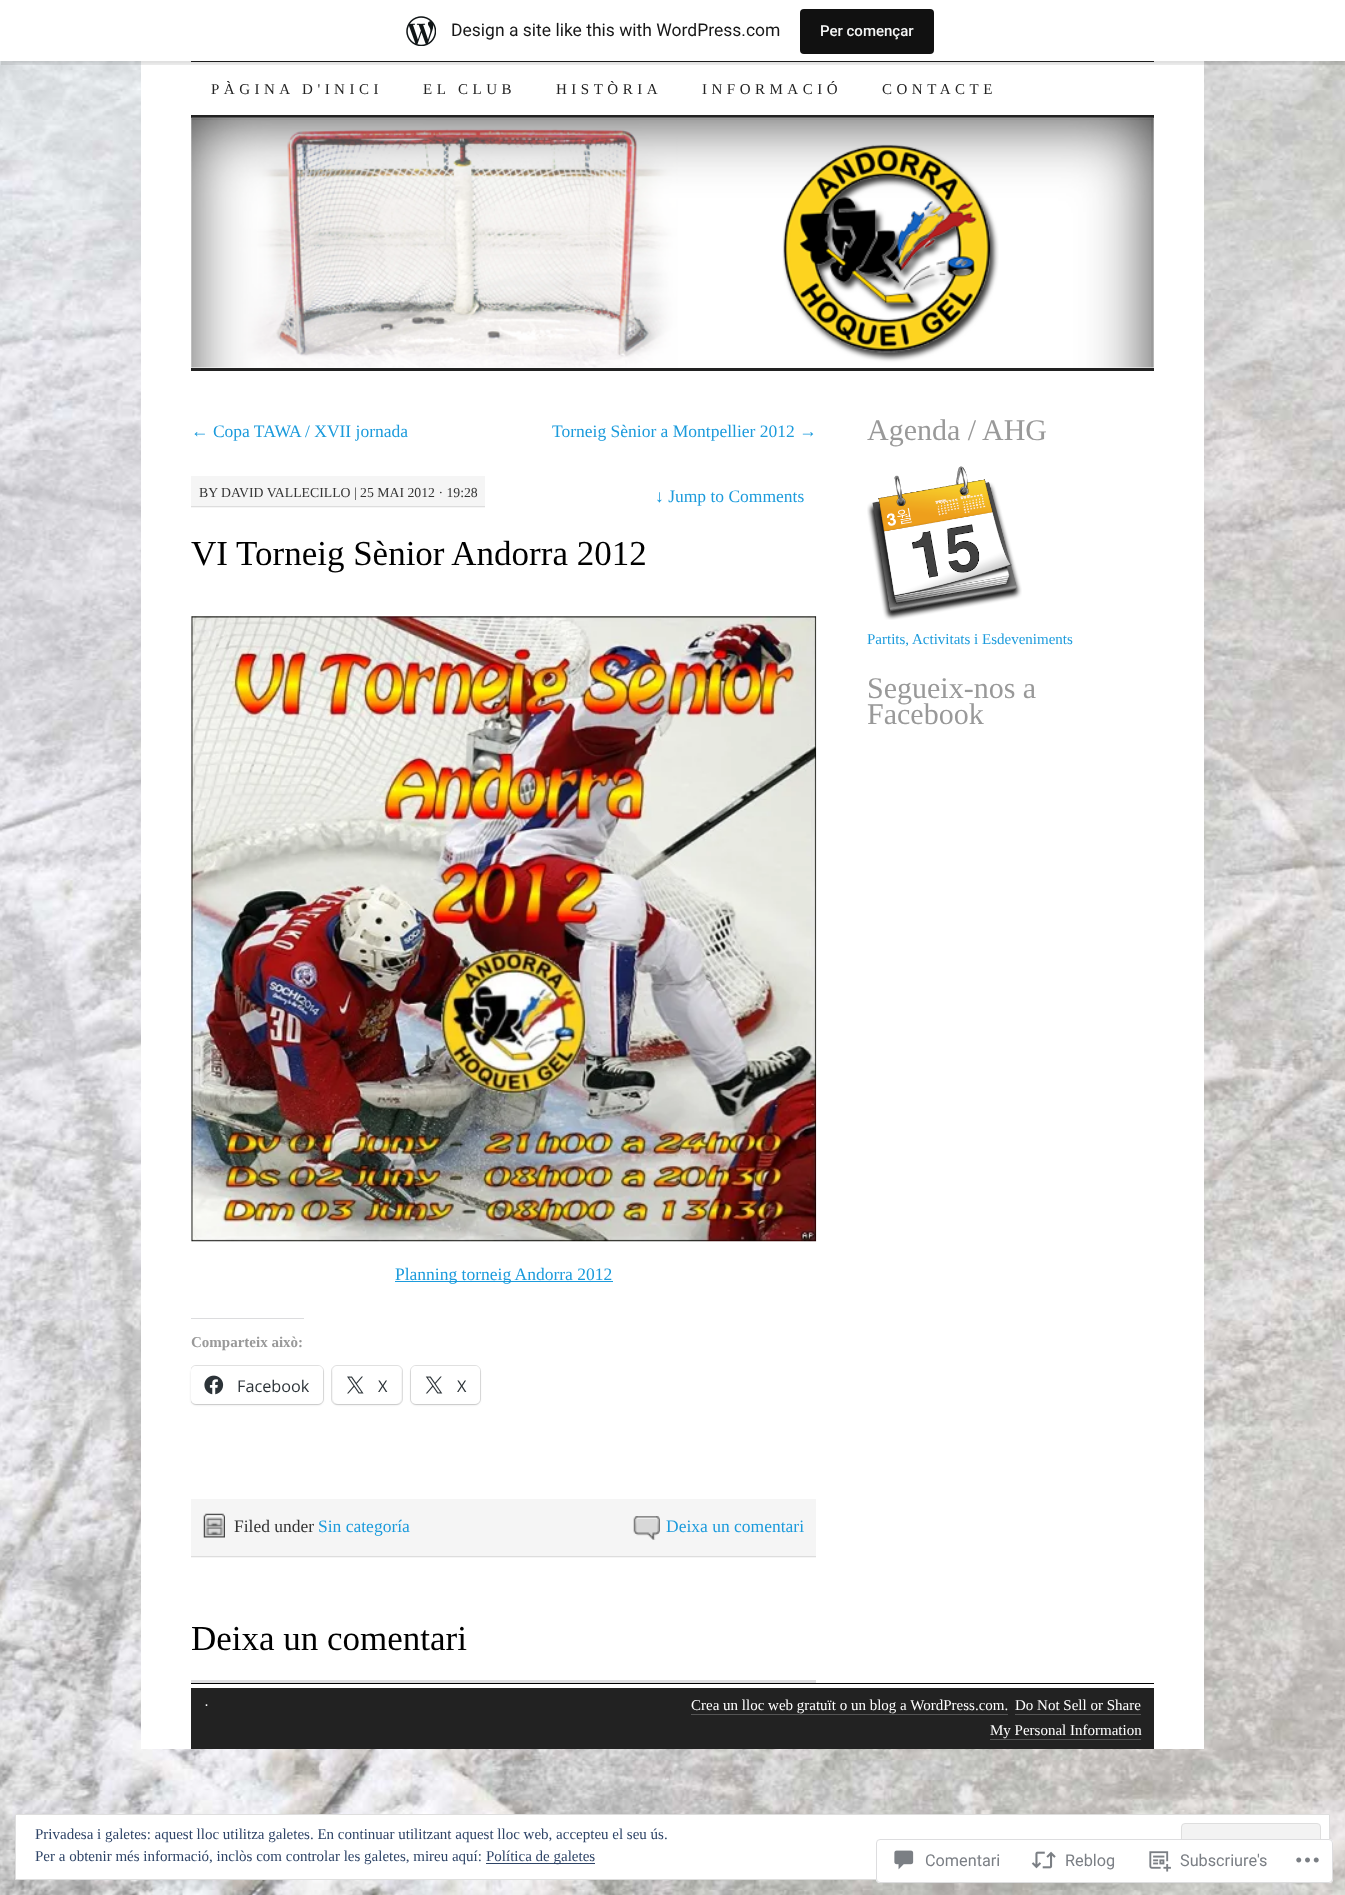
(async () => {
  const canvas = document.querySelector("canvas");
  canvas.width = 1345;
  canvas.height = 1895;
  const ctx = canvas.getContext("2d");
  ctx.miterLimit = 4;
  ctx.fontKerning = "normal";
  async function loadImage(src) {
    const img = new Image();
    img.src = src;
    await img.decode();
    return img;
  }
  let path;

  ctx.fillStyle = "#ffffff";
  ctx.fillRect(0, 0, 1345, 1895);
  ctx.drawImage(await loadImage("img/1.png"), 0, 61, 1345, 1834);
  ctx.fillRect(141, 61, 1063, 1688);
  ctx.fillStyle = "#222222";
  ctx.fillRect(191, 61, 963, 1);
  ctx.fillStyle = "rgba(0, 0, 0, 0.05)";
  ctx.filter = "blur(1px)";
  ctx.beginPath();
  ctx.rect(0, 1, 1345, 62);
  ctx.fill();
  ctx.filter = "none";
  ctx.fillStyle = "rgba(0, 0, 0, 0.08)";
  path = new Path2D("M1 61V65H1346V4H1345V61Z");
  ctx.fill(path);
  ctx.fillStyle = "#ffffff";
  ctx.fillRect(0, 0, 1345, 61);
  ctx.drawImage(await loadImage("img/2.png"), 406, 16, 30, 30);
  ctx.fillStyle = "#111111";
  ctx.beginPath();
  ctx.roundRect(800, 9, 134, 45, 4);
  ctx.fill();
  ctx.fillStyle = "#222222";
  ctx.fillRect(191, 115, 963, 3);
  ctx.drawImage(await loadImage("img/3.png"), 191, 117, 963, 251);
  for (const [x, y, w, h, color] of [
    [191, 368, 963, 3, "#222222"],
    [191, 476, 294, 32, "#f5f5f5"],
    [191, 506, 294, 1, "#dddddd"],
  ]) {
    ctx.fillStyle = color;
    ctx.fillRect(x, y, w, h);
  }
  ctx.drawImage(await loadImage("img/4.png"), 191, 616, 626, 626);
  ctx.fillStyle = "#1c9bdc";
  ctx.fillRect(395, 1281, 218, 1);
  ctx.fillStyle = "#dcdcde";
  ctx.fillRect(191, 1318, 113, 1);
  ctx.save();
  ctx.beginPath();
  ctx.rect(191, 418, 625, 1265);
  ctx.clip();
  ctx.beginPath();
  ctx.roundRect(190.5, 1365.5, 133, 39, 5.5);
  ctx.strokeStyle = "#e0e0e0";
  ctx.stroke();
  ctx.restore();
  ctx.fillStyle = "rgba(0, 0, 0, 0.12)";
  ctx.filter = "blur(1px)";
  ctx.beginPath();
  ctx.roundRect(191, 1368, 132, 37, 5);
  ctx.fill();
  ctx.filter = "none";
  ctx.fillStyle = "#ffffff";
  ctx.beginPath();
  ctx.roundRect(191, 1366, 132, 38, 5);
  ctx.fill();
  ctx.drawImage(await loadImage("img/5.png"), 204, 1375, 20, 20);
  ctx.beginPath();
  ctx.roundRect(331.5, 1365.5, 71, 39, 5.5);
  ctx.strokeStyle = "#e0e0e0";
  ctx.stroke();
  ctx.fillStyle = "rgba(0, 0, 0, 0.12)";
  ctx.filter = "blur(1px)";
  ctx.beginPath();
  ctx.roundRect(333, 1368, 68, 37, 5);
  ctx.fill();
  ctx.filter = "none";
  ctx.fillStyle = "#ffffff";
  ctx.beginPath();
  ctx.roundRect(333, 1366, 68, 38, 5);
  ctx.fill();
  ctx.drawImage(await loadImage("img/6.png"), 347, 1376, 17, 18);
  ctx.beginPath();
  ctx.roundRect(410.5, 1365.5, 70, 39, 5.5);
  ctx.stroke();
  ctx.fillStyle = "rgba(0, 0, 0, 0.12)";
  ctx.filter = "blur(1px)";
  ctx.beginPath();
  ctx.roundRect(411, 1368, 69, 37, 5);
  ctx.fill();
  ctx.filter = "none";
  ctx.fillStyle = "#ffffff";
  ctx.beginPath();
  ctx.roundRect(411, 1366, 69, 38, 5);
  ctx.fill();
  ctx.drawImage(await loadImage("img/7.png"), 425, 1376, 18, 18);
  ctx.fillStyle = "#f5f5f5";
  ctx.fillRect(191, 1499, 625, 59);
  ctx.fillStyle = "#dddddd";
  ctx.fillRect(191, 1556, 625, 1);
  ctx.drawImage(await loadImage("img/8.png"), 203, 1513, 22, 25);
  ctx.drawImage(await loadImage("img/9.png"), 633, 1516, 27, 24);
  ctx.fillStyle = "#dcdcde";
  ctx.fillRect(191, 1680, 625, 3);
  ctx.drawImage(await loadImage("img/10.png"), 867, 466, 155, 154);
  for (const [x, y, w, h, color] of [
    [191, 1683, 963, 1, "#000000"],
    [191, 1688, 963, 61, "#222222"],
    [691, 1714, 317, 1, "#555555"],
    [1015, 1714, 126, 1, "#555555"],
    [990, 1739, 151, 1, "#555555"],
  ]) {
    ctx.fillStyle = color;
    ctx.fillRect(x, y, w, h);
  }
  ctx.fillStyle = "#ffffff";
  ctx.beginPath();
  ctx.rect(15.5, 1814.5, 1314, 65);
  ctx.fill();
  ctx.strokeStyle = "#dedede";
  ctx.stroke();
  ctx.fillStyle = "#f3f3f3";
  ctx.beginPath();
  ctx.roundRect(1181.5, 1823.5, 139, 47, 3.5);
  ctx.fill();
  ctx.stroke();
  ctx.fillStyle = "#2e4467";
  ctx.fillRect(486, 1863, 109, 1);
  ctx.fillStyle = "rgba(255, 255, 255, 0.98)";
  ctx.beginPath();
  ctx.roundRect(876, 1839, 457, 44, 4);
  ctx.fill();
  ctx.beginPath();
  ctx.roundRect(876.5, 1839.5, 456, 43, 3.5);
  ctx.strokeStyle = "rgba(220, 220, 222, 0.98)";
  ctx.stroke();
  ctx.drawImage(await loadImage("img/11.png"), 894, 1850, 20, 20);
  ctx.drawImage(await loadImage("img/12.png"), 1031, 1851, 25, 18);
  ctx.drawImage(await loadImage("img/13.png"), 1149, 1851, 22, 21);
  ctx.drawImage(await loadImage("img/14.png"), 1296, 1857, 23, 6);
  ctx.font = "17.5px Roboto";
  ctx.fillStyle = "#171717";
  ctx.fillText("Design a site like this with WordPress.com", 451, 36);
  ctx.font = "500 15px Roboto";
  ctx.fillStyle = "#f6f7f7";
  ctx.fillText("Per començar", 820, 36);
  ctx.letterSpacing = "4.5px";
  ctx.font = "15px Liberation Serif";
  ctx.fillStyle = "#222222";
  for (const [text, x, y] of [
    ["PÀGINA D'INICI", 211, 94],
    ["EL CLUB", 423, 94],
    ["HISTÒRIA", 556, 94],
    ["INFORMACIÓ", 702, 94],
    ["CONTACTE", 882, 94],
  ]) {
    ctx.fillText(text, x, y);
  }
  ctx.letterSpacing = "0px";
  ctx.font = "17.5px Liberation Serif";
  ctx.fillStyle = "#1c9bdc";
  ctx.fillText("← Copa TAWA / XVII jornada", 191, 437);
  ctx.fillText("Torneig Sènior a Montpellier 2012 →", 552, 437);
  ctx.font = "13.75px Liberation Serif";
  ctx.fillStyle = "#333333";
  ctx.fillText("BY", 199, 497);
  ctx.fillText("DAVID VALLECILLO | 25 MAI 2012 · 19:28", 221, 497);
  ctx.font = "17.5px Liberation Serif";
  ctx.fillStyle = "#1c9bdc";
  ctx.fillText("↓ Jump to Comments", 655, 502);
  ctx.font = "35px Liberation Serif";
  ctx.fillStyle = "#000000";
  ctx.fillText("VI Torneig Sènior Andorra 2012", 191, 565);
  ctx.font = "17.5px Liberation Serif";
  ctx.fillStyle = "#1c9bdc";
  ctx.fillText("Planning torneig Andorra 2012", 395, 1280);
  ctx.font = "bold 15px Liberation Serif";
  ctx.fillStyle = "#999999";
  ctx.fillText("Comparteix això:", 191, 1347);
  ctx.font = "16.25px Open Sans";
  ctx.fillStyle = "#2c3338";
  for (const [text, x, y] of [
    ["Facebook", 237, 1392],
    ["X", 378, 1392],
    ["X", 457, 1392],
  ]) {
    ctx.fillText(text, x, y);
  }
  ctx.font = "17.5px Liberation Serif";
  ctx.fillStyle = "#333333";
  ctx.fillText("Filed under", 234, 1532);
  ctx.fillStyle = "#1c9bdc";
  ctx.fillText("Sin categoría", 318, 1532);
  ctx.fillText("Deixa un comentari", 666, 1532);
  ctx.font = "35px Liberation Serif";
  ctx.fillStyle = "#000000";
  ctx.fillText("Deixa un comentari", 191, 1650);
  ctx.font = "30px Liberation Serif";
  ctx.fillStyle = "#999999";
  ctx.fillText("Agenda / AHG", 867, 440);
  ctx.font = "15px Liberation Serif";
  ctx.fillStyle = "#1c9bdc";
  ctx.fillText("Partits, Activitats i Esdeveniments", 867, 644);
  ctx.font = "30px Liberation Serif";
  ctx.fillStyle = "#999999";
  ctx.fillText("Segueix-nos a", 867, 698);
  ctx.fillText("Facebook", 867, 724);
  ctx.font = "15px Liberation Serif";
  ctx.fillStyle = "#ffffff";
  for (const [text, x, y] of [
    ["·", 204, 1710],
    ["Crea un lloc web gratuït o un blog a WordPress.com.", 691, 1710],
    ["Do Not Sell or Share", 1015, 1710],
    ["My Personal Information", 990, 1735],
  ]) {
    ctx.fillText(text, x, y);
  }
  ctx.fillStyle = "#2e4467";
  for (const [text, x, y] of [
    ["Privadesa i galetes: aquest lloc utilitza galetes. En continuar utilitzant aquest lloc web, accepteu el seu ús.", 35, 1839],
    ["Per a obtenir més informació, inclòs com controlar les galetes, mireu aquí:", 35, 1861],
    ["Política de galetes", 486, 1861],
  ]) {
    ctx.fillText(text, x, y);
  }
  ctx.font = "16.25px Roboto";
  ctx.fillStyle = "#7b7f85";
  for (const [text, x, y] of [
    ["Comentari", 925, 1866],
    ["Reblog", 1065, 1866],
    ["Subscriure's", 1180, 1866],
  ]) {
    ctx.fillText(text, x, y);
  }
})();
